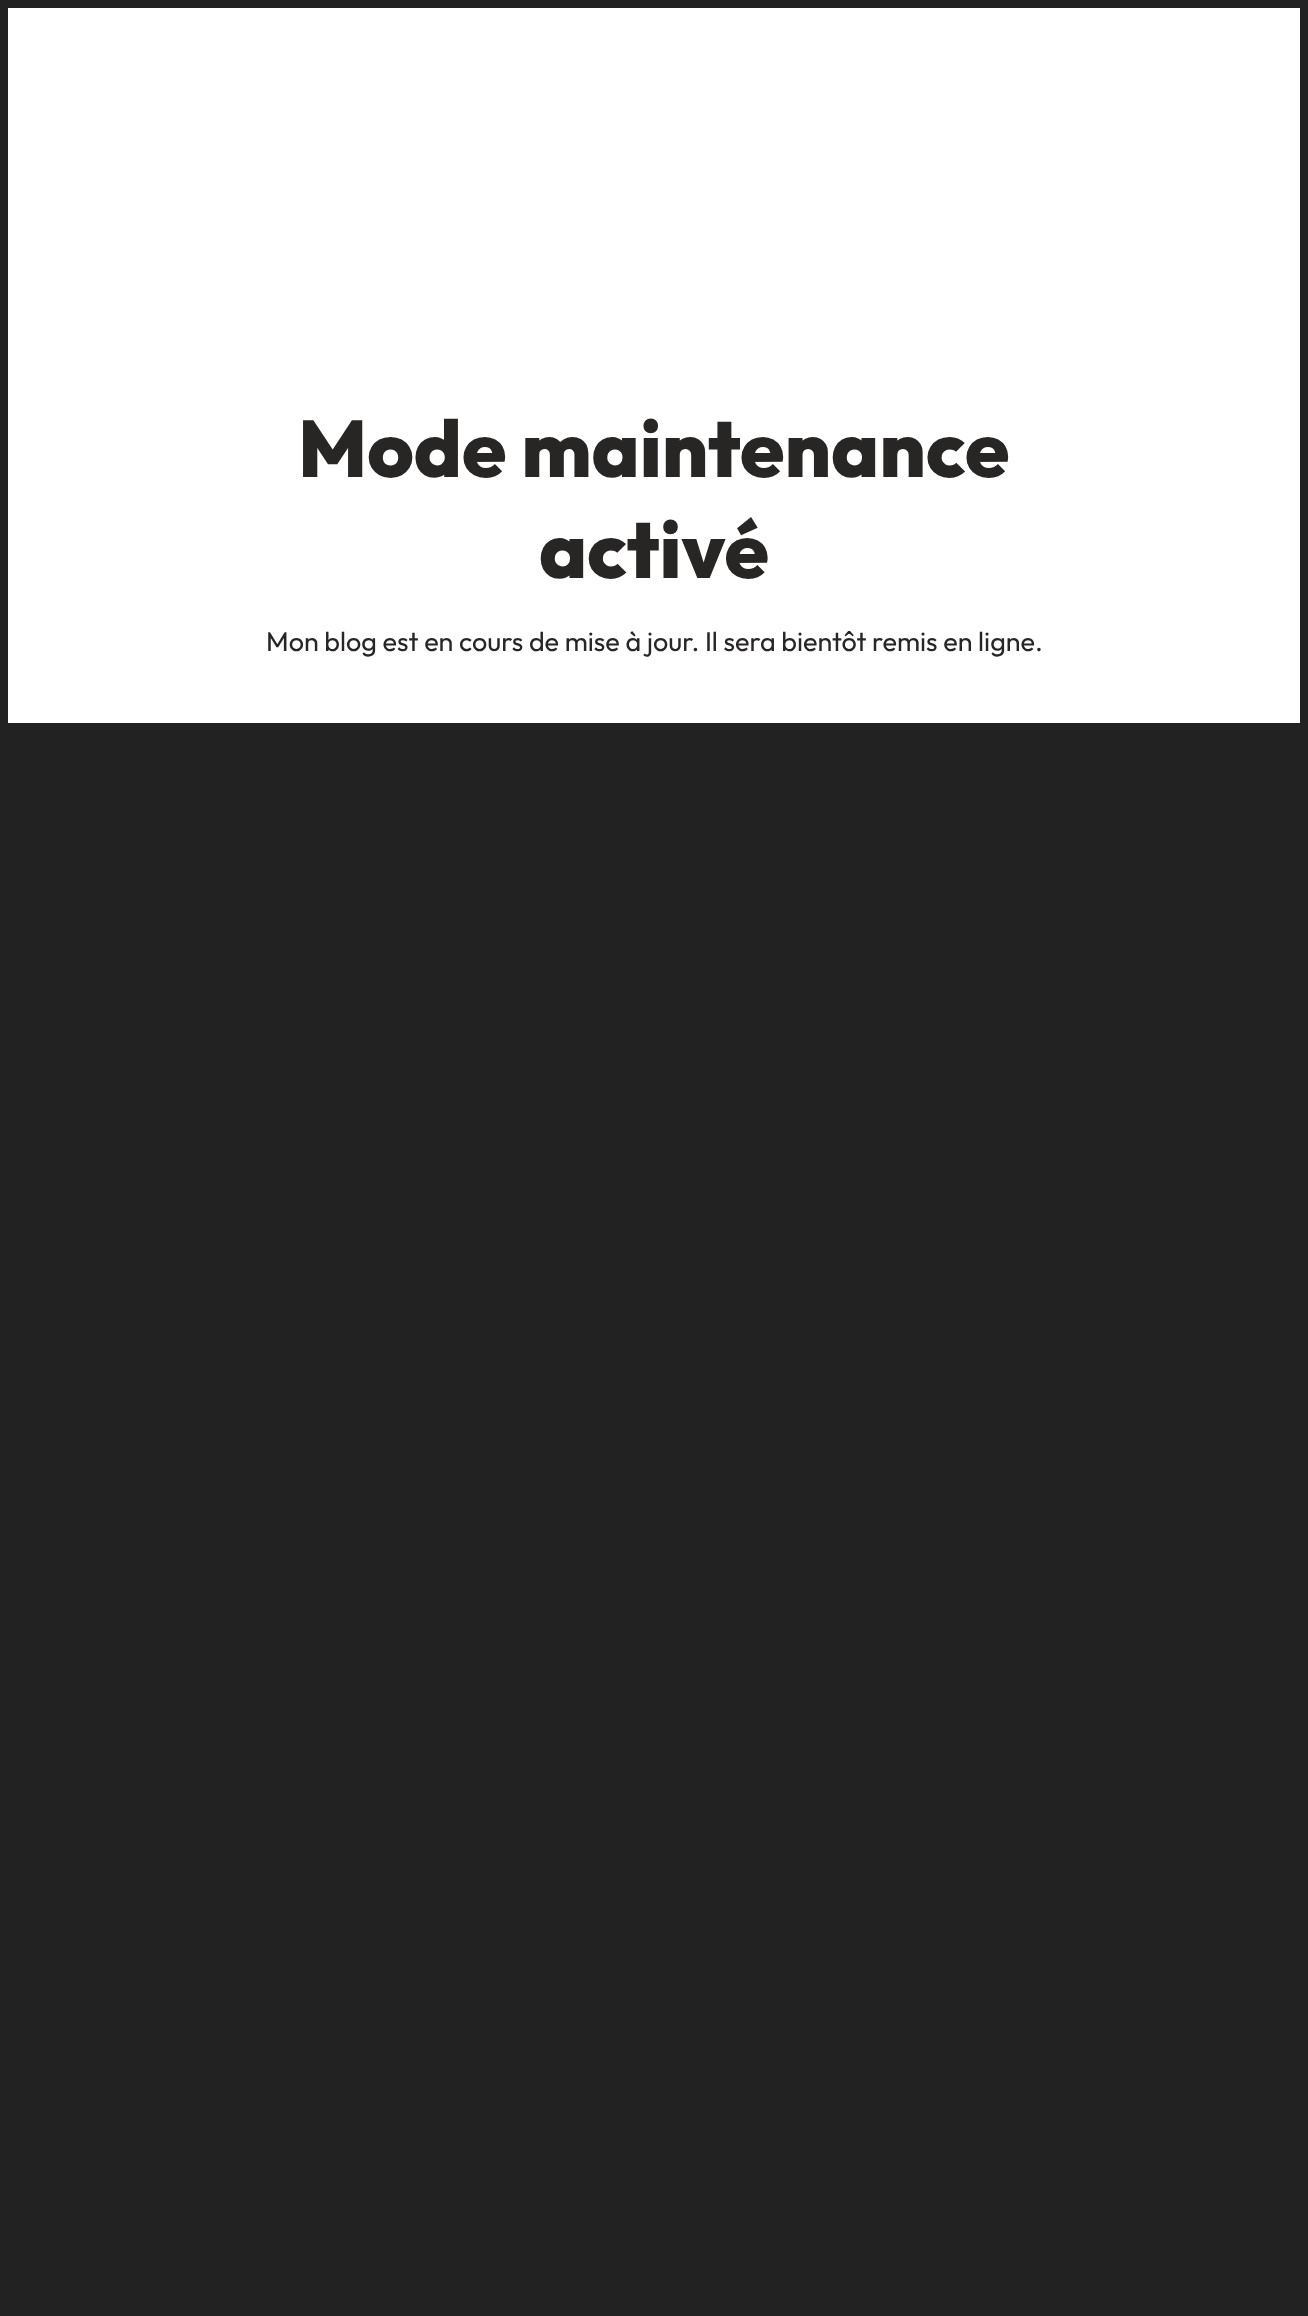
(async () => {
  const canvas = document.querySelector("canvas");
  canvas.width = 1308;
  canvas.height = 2316;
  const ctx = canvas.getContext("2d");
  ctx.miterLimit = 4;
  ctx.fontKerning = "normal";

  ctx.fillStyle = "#222222";
  ctx.fillRect(0, 0, 1308, 2316);
  ctx.fillStyle = "#ffffff";
  ctx.fillRect(8, 8, 1292, 715);
  ctx.font = "800 80px Outfit";
  ctx.fillStyle = "#282525";
  ctx.fillText("Mode maintenance", 298, 477);
  ctx.fillText("activé", 539, 578);
  ctx.font = "27px Outfit";
  ctx.fillText("Mon blog est en cours de mise à jour. Il sera bientôt remis en ligne.", 266, 651);
})();
